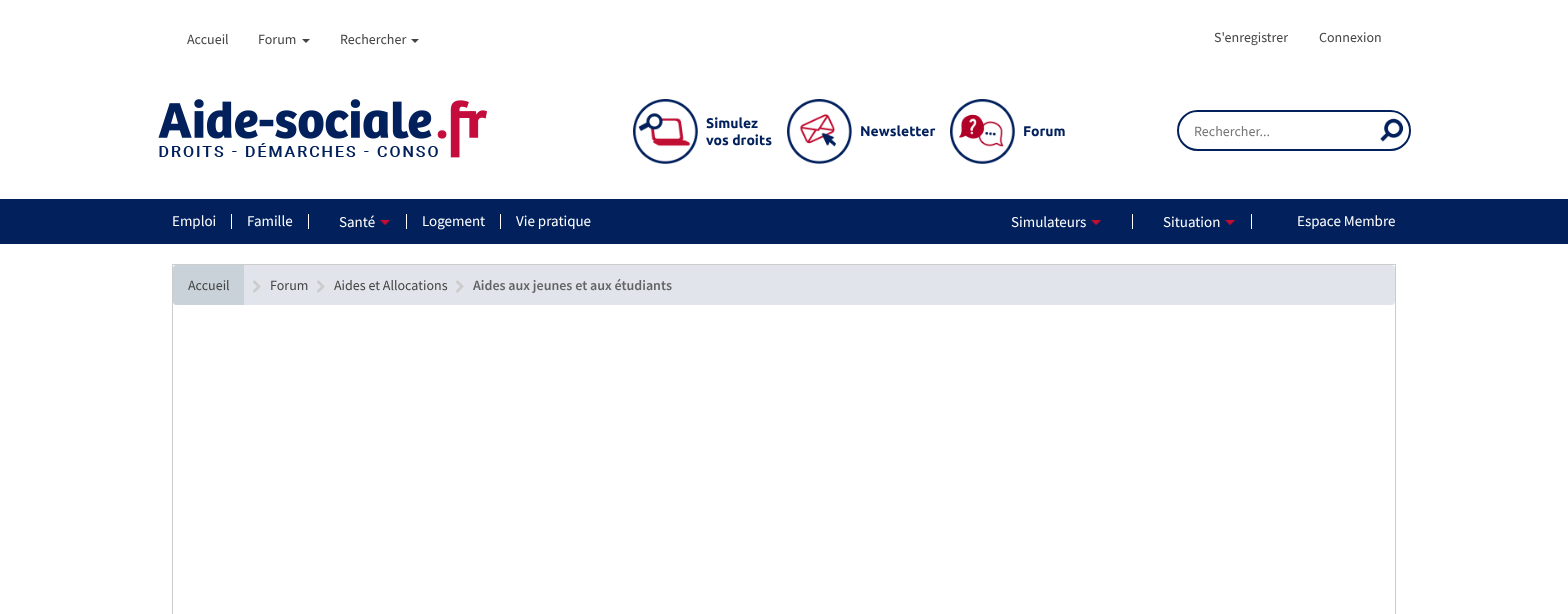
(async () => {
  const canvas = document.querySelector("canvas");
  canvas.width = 1568;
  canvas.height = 614;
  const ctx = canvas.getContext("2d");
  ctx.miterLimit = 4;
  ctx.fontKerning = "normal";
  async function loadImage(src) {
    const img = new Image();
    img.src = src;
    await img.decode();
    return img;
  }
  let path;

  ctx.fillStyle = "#ffffff";
  ctx.fillRect(0, 0, 1568, 614);
  ctx.fillStyle = "#444444";
  path = new Path2D("M302 39H310L306 43Z");
  ctx.fill(path);
  path = new Path2D("M411 39H419L415 43Z");
  ctx.fill(path);
  ctx.drawImage(await loadImage("img/1.png"), 158, 99, 329, 59);
  ctx.drawImage(await loadImage("img/2.png"), 633, 99, 65, 65);
  ctx.drawImage(await loadImage("img/3.png"), 787, 99, 65, 65);
  ctx.drawImage(await loadImage("img/4.png"), 950, 99, 65, 65);
  ctx.beginPath();
  ctx.roundRect(1178, 111, 232, 39, 19.5);
  ctx.strokeStyle = "#01205c";
  ctx.lineWidth = 2;
  ctx.stroke();
  ctx.drawImage(await loadImage("img/5.png"), 1380, 118, 24, 24);
  for (const [x, y, w, h, color] of [
    [0, 199, 1568, 45, "#01205c"],
    [231, 214, 1, 15, "#ffffff"],
    [308, 214, 1, 15, "#ffffff"],
    [406, 214, 1, 15, "#ffffff"],
  ]) {
    ctx.fillStyle = color;
    ctx.fillRect(x, y, w, h);
  }
  ctx.drawImage(await loadImage("img/6.png"), 380, 220, 11, 6);
  ctx.fillRect(500, 214, 1, 15);
  ctx.fillRect(1132, 214, 1, 15);
  ctx.drawImage(await loadImage("img/6.png"), 1091, 220, 11, 6);
  ctx.fillRect(1251, 214, 1, 15);
  ctx.drawImage(await loadImage("img/6.png"), 1225, 220, 11, 6);
  ctx.strokeStyle = "#cccccc";
  ctx.lineWidth = 1;
  ctx.strokeRect(172.5, 264.5, 1223, 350);
  ctx.fillStyle = "#e1e5eb";
  ctx.beginPath();
  ctx.roundRect(173, 265, 1222, 40, 4);
  ctx.fill();
  ctx.fillStyle = "#c8d2d8";
  ctx.beginPath();
  ctx.roundRect(173, 265, 71, 40, [4, 0, 0, 4]);
  ctx.fill();
  ctx.drawImage(await loadImage("img/7.png"), 253, 280, 8, 13);
  ctx.drawImage(await loadImage("img/7.png"), 317, 280, 8, 13);
  ctx.drawImage(await loadImage("img/7.png"), 456, 280, 8, 13);
  ctx.font = "14px Source Sans Pro";
  ctx.fillStyle = "#444444";
  for (const [text, x, y] of [
    ["Accueil", 187, 44],
    ["Forum", 258, 44],
    ["Rechercher", 340, 44],
    ["S'enregistrer", 1214, 42],
    ["Connexion", 1319, 42],
  ]) {
    ctx.fillText(text, x, y);
  }
  ctx.font = "bold 14px Ubuntu";
  ctx.fillStyle = "#01205c";
  for (const [text, x, y] of [
    ["Simulez", 706, 128],
    ["vos droits", 706, 145],
    ["Newsletter", 860, 136],
    ["Forum", 1023, 136],
  ]) {
    ctx.fillText(text, x, y);
  }
  ctx.font = "14px Source Sans Pro";
  ctx.fillStyle = "#757575";
  ctx.fillText("Rechercher...", 1194, 136);
  ctx.font = "15px Source Sans Pro";
  ctx.fillStyle = "#ffffff";
  for (const [text, x, y] of [
    ["Emploi", 172, 226],
    ["Famille", 247, 226],
    ["Santé", 339, 227],
    ["Logement", 422, 226],
    ["Vie pratique", 516, 226],
    ["Simulateurs", 1011, 227],
    ["Situation", 1163, 227],
    ["Espace Membre", 1297, 226],
  ]) {
    ctx.fillText(text, x, y);
  }
  ctx.font = "14px Source Sans Pro";
  ctx.fillStyle = "#444444";
  for (const [text, x, y] of [
    ["Accueil", 188, 290],
    ["Forum", 270, 290],
    ["Aides et Allocations", 334, 290],
  ]) {
    ctx.fillText(text, x, y);
  }
  ctx.font = "600 14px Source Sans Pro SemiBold";
  ctx.fillStyle = "#636465";
  ctx.fillText("Aides aux jeunes et aux étudiants", 473, 290);
})();
